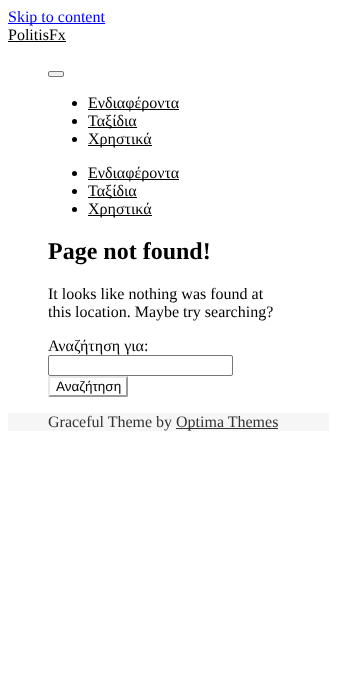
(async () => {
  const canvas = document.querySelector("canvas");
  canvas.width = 337;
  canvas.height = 677;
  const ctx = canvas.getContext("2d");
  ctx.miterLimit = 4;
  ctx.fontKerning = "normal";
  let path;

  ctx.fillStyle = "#ffffff";
  ctx.fillRect(0, 0, 337, 677);
  ctx.fillStyle = "#0000ee";
  ctx.fillRect(8, 23, 97, 1);
  ctx.fillStyle = "#000000";
  ctx.fillRect(8, 41, 58, 1);
  ctx.fillStyle = "#efefef";
  ctx.beginPath();
  ctx.roundRect(48.5, 71.5, 15, 5, 1.5);
  ctx.fill();
  ctx.strokeStyle = "#767676";
  ctx.stroke();
  ctx.fillStyle = "#000000";
  ctx.beginPath();
  ctx.arc(74.5, 103.5, 2.5, 0, Math.PI * 2);
  ctx.fill();
  ctx.fillRect(88, 109, 91, 1);
  ctx.beginPath();
  ctx.arc(74.5, 121.5, 2.5, 0, Math.PI * 2);
  ctx.fill();
  ctx.fillRect(88, 127, 49, 1);
  ctx.beginPath();
  ctx.arc(74.5, 139.5, 2.5, 0, Math.PI * 2);
  ctx.fill();
  ctx.fillRect(88, 145, 64, 1);
  ctx.beginPath();
  ctx.arc(74.5, 173.5, 2.5, 0, Math.PI * 2);
  ctx.fill();
  ctx.fillRect(88, 179, 91, 1);
  ctx.beginPath();
  ctx.arc(74.5, 191.5, 2.5, 0, Math.PI * 2);
  ctx.fill();
  ctx.fillRect(88, 197, 49, 1);
  ctx.beginPath();
  ctx.arc(74.5, 209.5, 2.5, 0, Math.PI * 2);
  ctx.fill();
  ctx.fillRect(88, 215, 64, 1);
  ctx.beginPath();
  ctx.roundRect(48.5, 355.5, 184, 20, 1.5);
  ctx.stroke();
  ctx.fillStyle = "#e8e8e8";
  path = new Path2D("M48 376H128L126 378H50Z");
  ctx.fill(path);
  ctx.fillStyle = "#9b9b9b";
  path = new Path2D("M128 376V397L126 395V378Z");
  ctx.fill(path);
  path = new Path2D("M128 397H48L50 395H126Z");
  ctx.fill(path);
  ctx.fillStyle = "#e8e8e8";
  path = new Path2D("M48 397V376L50 378V395Z");
  ctx.fill(path);
  ctx.fillStyle = "#f6f6f6";
  ctx.fillRect(8, 413, 321, 18);
  ctx.fillStyle = "#333333";
  ctx.fillRect(176, 428, 102, 1);
  ctx.font = "16px Liberation Serif";
  ctx.fillStyle = "#0000ee";
  ctx.fillText("Skip to content", 8, 22);
  ctx.fillStyle = "#000000";
  for (const [text, x, y] of [
    ["PolitisFx", 8, 40],
    ["Ενδιαφέροντα", 88, 108],
    ["Ταξίδια", 88, 126],
    ["Χρηστικά", 88, 144],
    ["Ενδιαφέροντα", 88, 178],
    ["Ταξίδια", 88, 196],
    ["Χρηστικά", 88, 214],
  ]) {
    ctx.fillText(text, x, y);
  }
  ctx.font = "bold 24px Liberation Serif";
  ctx.fillText("Page not found!", 48, 259);
  ctx.font = "16px Liberation Serif";
  for (const [text, x, y] of [
    ["It looks like nothing was found at", 48, 299],
    ["this location. Maybe try searching?", 48, 317],
    ["Αναζήτηση για:", 48, 351],
  ]) {
    ctx.fillText(text, x, y);
  }
  ctx.font = "13.5px Liberation Sans";
  ctx.fillText("Αναζήτηση", 56, 391);
  ctx.font = "16px Liberation Serif";
  ctx.fillStyle = "#333333";
  ctx.fillText("Graceful Theme by", 48, 427);
  ctx.fillText("Optima Themes", 176, 427);
})();
